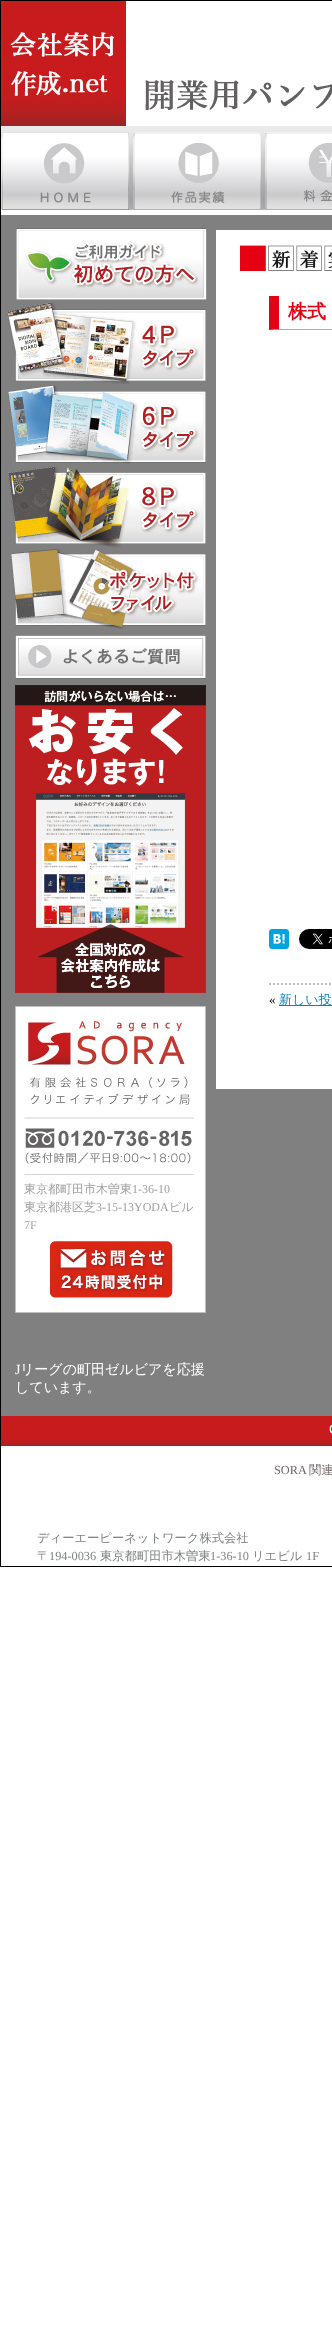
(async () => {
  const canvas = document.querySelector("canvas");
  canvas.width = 332;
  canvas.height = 2327;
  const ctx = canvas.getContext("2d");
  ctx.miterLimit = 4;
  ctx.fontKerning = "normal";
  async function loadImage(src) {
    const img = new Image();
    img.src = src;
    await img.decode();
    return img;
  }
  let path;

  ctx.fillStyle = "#ffffff";
  ctx.fillRect(0, 0, 332, 2327);
  ctx.strokeStyle = "#000000";
  ctx.strokeRect(0.5, 0.5, 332, 1566);
  ctx.drawImage(await loadImage("img/1.png"), 1, 1, 125, 125);
  ctx.drawImage(await loadImage("img/2.png"), 145, 80, 187, 31);
  ctx.drawImage(await loadImage("img/3.png"), 1, 126, 331, 84);
  ctx.drawImage(await loadImage("img/4.png"), 1, 132, 128, 78);
  ctx.drawImage(await loadImage("img/5.png"), 133, 132, 128, 78);
  ctx.drawImage(await loadImage("img/6.png"), 265, 132, 67, 78);
  ctx.fillStyle = "#808080";
  ctx.fillRect(1, 215, 331, 1201);
  ctx.fillStyle = "#ffffff";
  ctx.fillRect(216, 230, 116, 859);
  ctx.drawImage(await loadImage("img/7.png"), 240, 245, 92, 26);
  ctx.fillStyle = "#a9a9a9";
  path = new Path2D("M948 330H269L279 329H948Z");
  ctx.fill(path);
  ctx.fillStyle = "#e60013";
  path = new Path2D("M269 330V296H279V329Z");
  ctx.fill(path);
  ctx.drawImage(await loadImage("img/8.png"), 269, 929, 20, 20);
  ctx.drawImage(await loadImage("img/9.png"), 299, 929, 33, 20);
  path = new Path2D("M269 984H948");
  ctx.strokeStyle = "#bbbbbb";
  ctx.lineWidth = 2;
  ctx.setLineDash([2, 2]);
  ctx.stroke(path);
  ctx.fillStyle = "#0d82b8";
  ctx.fillRect(279, 1005, 53, 1);
  ctx.drawImage(await loadImage("img/10.png"), 16, 228, 191, 72);
  ctx.drawImage(await loadImage("img/11.png"), 7, 302, 199, 82);
  ctx.drawImage(await loadImage("img/12.png"), 8, 384, 198, 80);
  ctx.drawImage(await loadImage("img/13.png"), 8, 466, 198, 82);
  ctx.drawImage(await loadImage("img/14.png"), 11, 548, 195, 81);
  ctx.drawImage(await loadImage("img/15.png"), 15, 635, 191, 44);
  ctx.drawImage(await loadImage("img/16.png"), 15, 685, 191, 308);
  ctx.fillStyle = "#ffffff";
  ctx.beginPath();
  ctx.rect(15.5, 1006.5, 190, 306);
  ctx.fill();
  ctx.strokeStyle = "#bfbfbf";
  ctx.lineWidth = 1;
  ctx.setLineDash([]);
  ctx.stroke();
  ctx.drawImage(await loadImage("img/17.png"), 24, 1015, 170, 160);
  ctx.drawImage(await loadImage("img/18.png"), 48, 1236, 125, 62);
  ctx.drawImage(await loadImage("img/19.png"), 1, 1416, 331, 30);
  ctx.font = "bold 19px WenQuanYi Zen Hei";
  ctx.fillStyle = "#e60013";
  ctx.fillText("株式", 288, 318);
  ctx.font = "13px Liberation Serif";
  ctx.fillStyle = "#000000";
  ctx.fillText("«", 269, 1004);
  ctx.font = "500 13px WenQuanYi Zen Hei";
  ctx.fillStyle = "#0d82b8";
  ctx.fillText("新しい投", 279, 1004);
  ctx.font = "500 12px WenQuanYi Zen Hei";
  ctx.fillStyle = "#9f9f9f";
  ctx.fillText("東京都町田市木曽東", 24, 1193);
  ctx.font = "12px Liberation Serif";
  ctx.fillText("1-36-10", 132, 1193);
  ctx.font = "500 12px WenQuanYi Zen Hei";
  ctx.fillText("東京都港区芝", 24, 1211);
  ctx.font = "12px Liberation Serif";
  ctx.fillText("3-15-13YODA", 96, 1211);
  ctx.font = "500 12px WenQuanYi Zen Hei";
  ctx.fillText("ビル", 169, 1211);
  ctx.font = "12px Liberation Serif";
  ctx.fillText("7F", 24, 1229);
  ctx.font = "14px Liberation Serif";
  ctx.fillStyle = "#ffffff";
  ctx.fillText("J", 15, 1374);
  ctx.font = "500 14px WenQuanYi Zen Hei";
  ctx.fillText("リーグの町田ゼルビアを応援", 20, 1374);
  ctx.fillText("しています。", 15, 1392);
  ctx.font = "12.3px Liberation Serif";
  ctx.fillStyle = "#716565";
  ctx.fillText("SORA", 274, 1474);
  ctx.font = "500 12.3px WenQuanYi Zen Hei";
  ctx.fillText("関連", 309, 1474);
  ctx.fillStyle = "#7e8480";
  ctx.fillText("ディーエーピーネットワーク株式会社", 37, 1542);
  ctx.fillText("〒", 37, 1560);
  ctx.font = "12.3px Liberation Serif";
  ctx.fillText("194-0036", 49, 1560);
  ctx.font = "500 12.3px WenQuanYi Zen Hei";
  ctx.fillText("東京都町田市木曽東", 100, 1560);
  ctx.font = "12.3px Liberation Serif";
  ctx.fillText("1-36-10", 210, 1560);
  ctx.font = "500 12.3px WenQuanYi Zen Hei";
  ctx.fillText("リエビル", 252, 1560);
  ctx.font = "12.3px Liberation Serif";
  ctx.fillText("1F", 306, 1560);
})();
